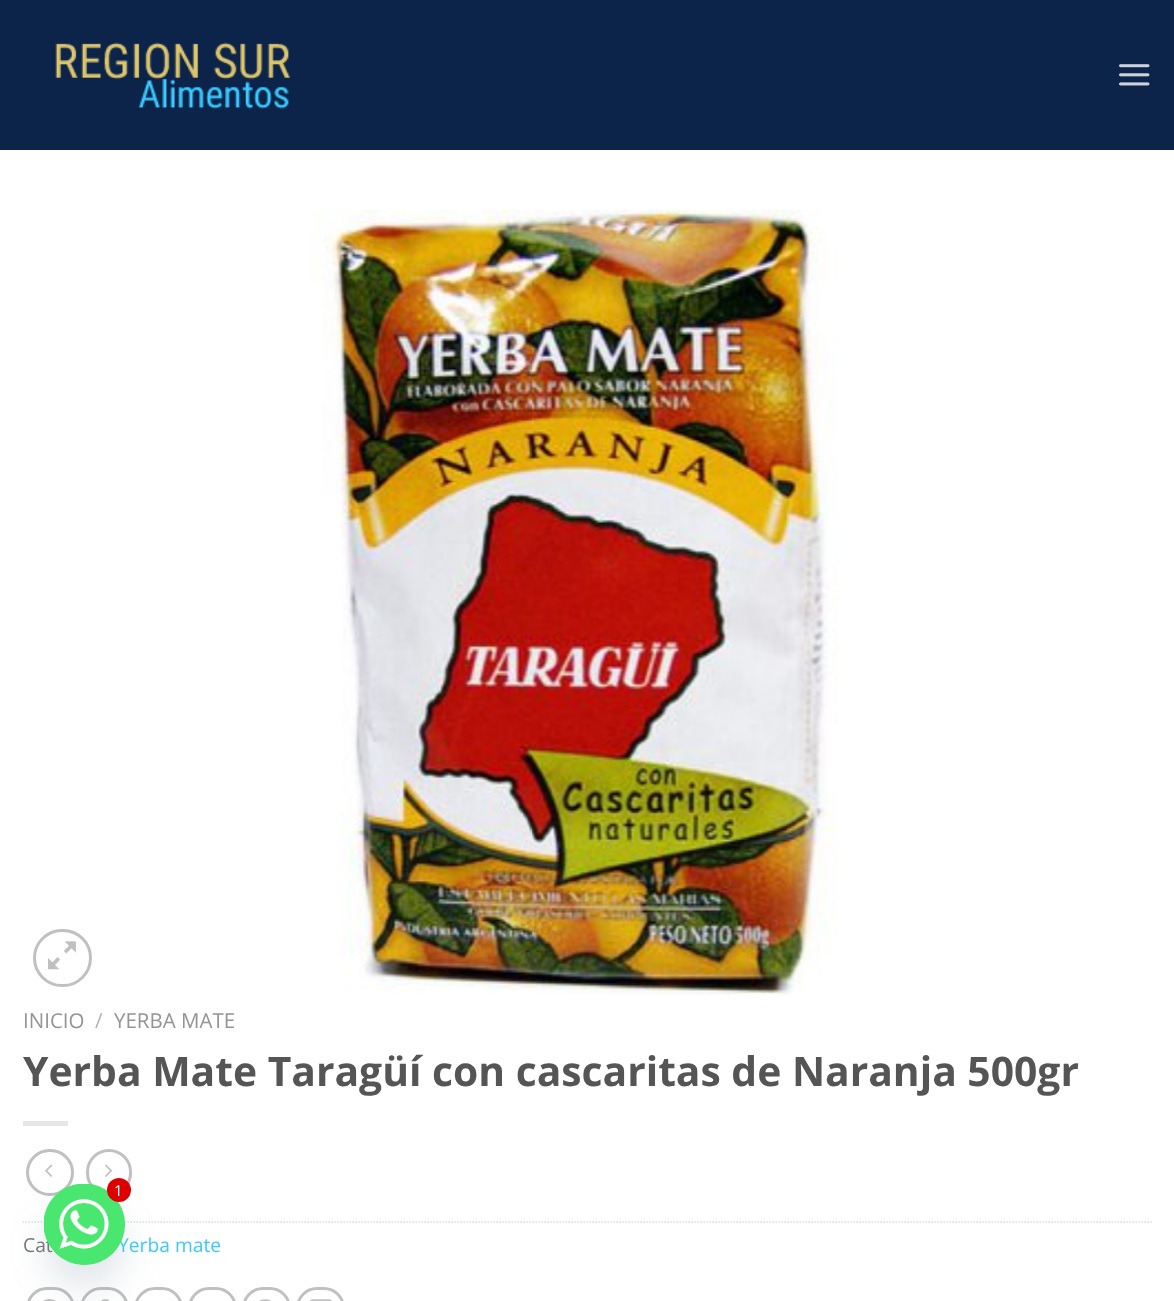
(async () => {
  const canvas = document.querySelector("canvas");
  canvas.width = 1174;
  canvas.height = 1301;
  const ctx = canvas.getContext("2d");
  ctx.miterLimit = 4;
  ctx.fontKerning = "normal";
  async function loadImage(src) {
    const img = new Image();
    img.src = src;
    await img.decode();
    return img;
  }
  let path;

  ctx.fillStyle = "#ffffff";
  ctx.fillRect(0, 0, 1174, 1301);
  ctx.fillStyle = "#0c244a";
  ctx.fillRect(0, 0, 1174, 150);
  ctx.drawImage(await loadImage("img/1.png"), 55, 42, 235, 67);
  ctx.drawImage(await loadImage("img/2.png"), 1119, 64, 31, 22);
  ctx.beginPath();
  ctx.roundRect(34.5, 930.5, 56, 55, 27.5);
  ctx.strokeStyle = "#c0c0c0";
  ctx.lineWidth = 3;
  ctx.stroke();
  ctx.drawImage(await loadImage("img/3.png"), 48, 941, 28, 29);
  ctx.drawImage(await loadImage("img/4.png"), 309, 210, 529, 785);
  ctx.fillStyle = "#e6e6e6";
  ctx.fillRect(23, 1121, 45, 5);
  ctx.beginPath();
  ctx.roundRect(27.5, 1150.5, 45, 44, 22);
  ctx.stroke();
  ctx.drawImage(await loadImage("img/5.png"), 45, 1164, 8, 13);
  ctx.beginPath();
  ctx.roundRect(87.5, 1150.5, 43, 44, 21.5);
  ctx.stroke();
  ctx.drawImage(await loadImage("img/6.png"), 105, 1164, 8, 13);
  path = new Path2D("M22.5 1222H1152");
  ctx.strokeStyle = "#dddddd";
  ctx.lineWidth = 1.5;
  ctx.setLineDash([1.5, 1.5]);
  ctx.stroke(path);
  ctx.beginPath();
  ctx.roundRect(27.5, 1288.5, 46, 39, 23);
  ctx.strokeStyle = "#c0c0c0";
  ctx.lineWidth = 3;
  ctx.setLineDash([]);
  ctx.stroke();
  ctx.drawImage(await loadImage("img/7.png"), 43, 1299, 13, 2);
  ctx.beginPath();
  ctx.roundRect(81.5, 1288.5, 46, 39, 23);
  ctx.stroke();
  ctx.drawImage(await loadImage("img/8.png"), 101, 1299, 8, 2);
  ctx.beginPath();
  ctx.roundRect(135.5, 1288.5, 46, 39, 23);
  ctx.stroke();
  ctx.beginPath();
  ctx.roundRect(189.5, 1288.5, 46, 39, 23);
  ctx.stroke();
  ctx.beginPath();
  ctx.roundRect(243.5, 1288.5, 46, 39, 23);
  ctx.stroke();
  ctx.drawImage(await loadImage("img/9.png"), 259, 1299, 13, 2);
  ctx.beginPath();
  ctx.roundRect(297.5, 1288.5, 46, 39, 23);
  ctx.stroke();
  ctx.drawImage(await loadImage("img/10.png"), 310, 1299, 22, 2);
  ctx.fillStyle = "rgba(73, 104, 126, 0.16)";
  ctx.filter = "blur(18px)";
  ctx.beginPath();
  ctx.roundRect(44, 1208, 81, 81, 40.5);
  ctx.fill();
  ctx.filter = "none";
  ctx.font = "20.5px Open Sans";
  ctx.fillStyle = "#949494";
  ctx.fillText("INICIO", 23, 1028);
  ctx.fillStyle = "#b2b2b2";
  ctx.fillText("/", 95, 1028);
  ctx.fillStyle = "#949494";
  ctx.fillText("YERBA MATE", 114, 1028);
  ctx.font = "bold 40.8px Open Sans";
  ctx.fillStyle = "#555555";
  ctx.fillText("Yerba Mate Taragüí con cascaritas de Naranja 500gr", 23, 1086);
  ctx.font = "19.25px Open Sans";
  ctx.fillStyle = "#777777";
  ctx.fillText("Cat", 23, 1252);
  ctx.fillStyle = "#3acaff";
  ctx.fillText("Yerba mate", 118, 1252);
  ctx.fillStyle = "#49e670";
  ctx.beginPath();
  ctx.arc(84.5, 1224.5, 40.5, 0, Math.PI * 2);
  ctx.fill();
  ctx.drawImage(await loadImage("img/11.png"), 44, 1184, 81, 81);
  ctx.fillStyle = "#dd0000";
  ctx.beginPath();
  ctx.arc(119, 1190, 12, 0, Math.PI * 2);
  ctx.fill();
  ctx.font = "15px Open Sans";
  ctx.fillStyle = "#ffffff";
  ctx.fillText("1", 114, 1196);
})();
